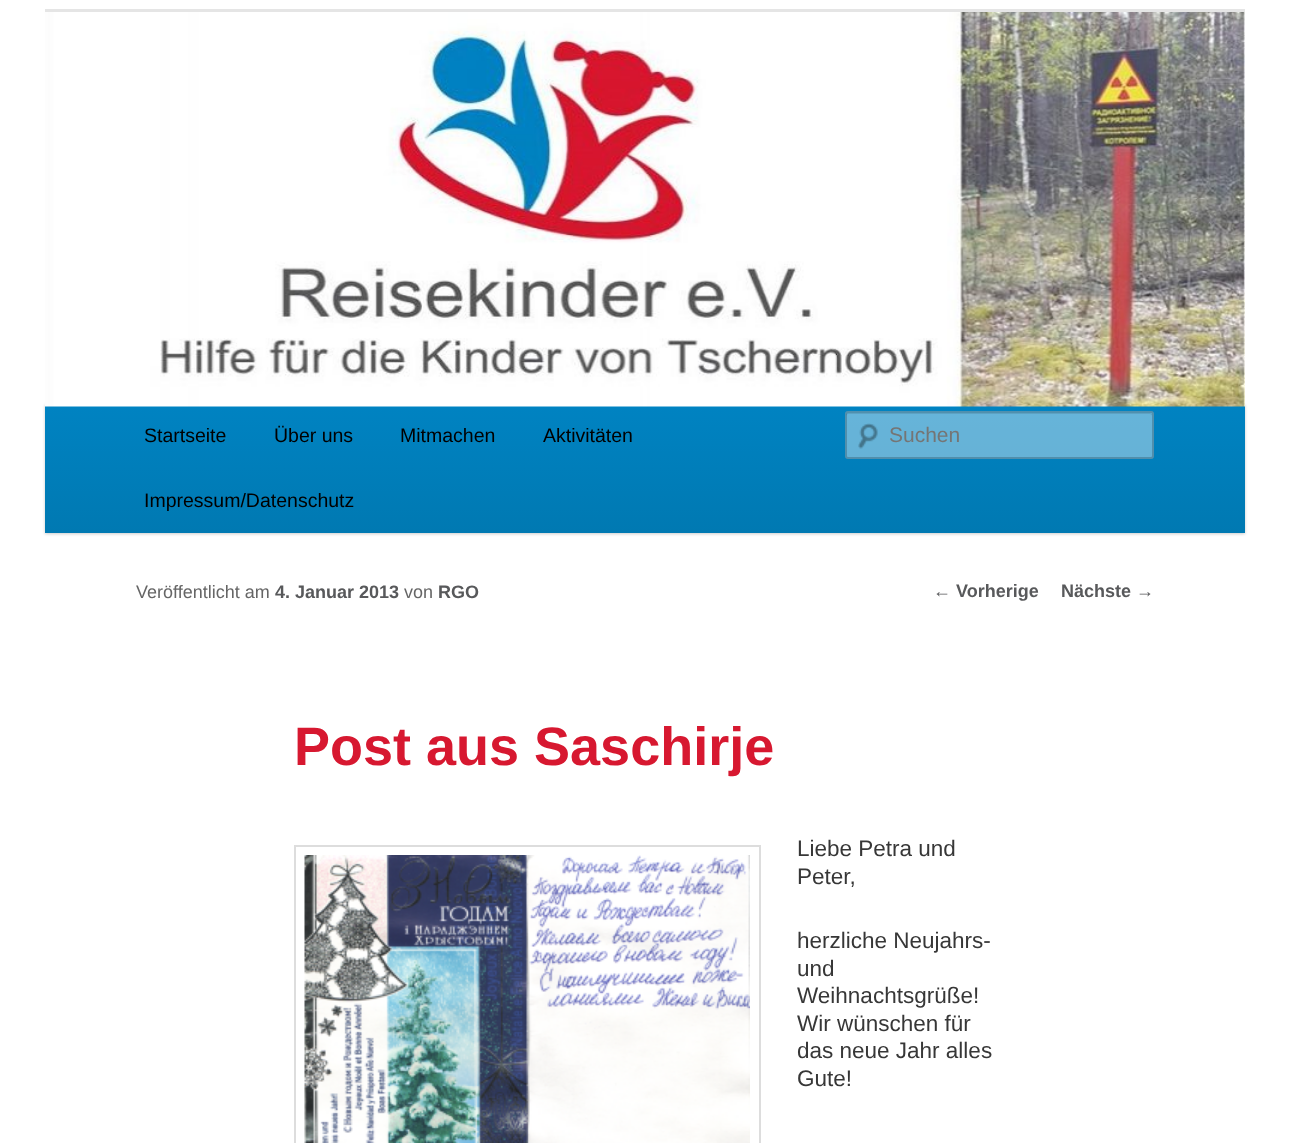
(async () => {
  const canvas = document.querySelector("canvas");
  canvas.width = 1289;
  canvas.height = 1143;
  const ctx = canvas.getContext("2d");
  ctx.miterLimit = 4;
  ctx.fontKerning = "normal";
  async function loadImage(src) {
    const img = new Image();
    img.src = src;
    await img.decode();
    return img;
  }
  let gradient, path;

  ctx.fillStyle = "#ffffff";
  ctx.fillRect(0, 0, 1289, 1143);
  ctx.fillStyle = "#e5e5e5";
  ctx.fillRect(45, 9, 1200, 3);
  ctx.fillStyle = "rgba(0, 0, 0, 0.2)";
  ctx.filter = "blur(1.5px)";
  ctx.beginPath();
  ctx.rect(45, 405, 1200, 129);
  ctx.fill();
  ctx.filter = "none";
  gradient = ctx.createLinearGradient(645, 403, 645, 533);
  gradient.addColorStop(0, "#0083c2");
  gradient.addColorStop(1, "#0079b2");
  ctx.fillStyle = gradient;
  ctx.fillRect(45, 406, 1200, 127);
  ctx.drawImage(await loadImage("img/1.png"), 45, 12, 1200, 395);
  ctx.fillStyle = "rgba(255, 255, 255, 0.4)";
  ctx.beginPath();
  ctx.roundRect(845, 411, 309, 48, 3);
  ctx.fill();
  ctx.drawImage(await loadImage("img/2.png"), 858, 423, 20, 26);
  ctx.fillStyle = "#5ca2c4";
  path = new Path2D("M848 414H1150C1151 414 1152 415 1152 416V414L1150 413H848C846 413 846 415 846 416C846 415 847 414 848 414Z");
  ctx.fill(path);
  ctx.beginPath();
  ctx.roundRect(846, 412, 307, 46, 2);
  ctx.strokeStyle = "rgba(0, 0, 0, 0.2)";
  ctx.lineWidth = 2;
  ctx.stroke();
  ctx.strokeStyle = "#dddddd";
  ctx.strokeRect(295, 846, 465, 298);
  ctx.drawImage(await loadImage("img/3.png"), 304, 855, 446, 288);
  ctx.font = "19.5px Liberation Sans";
  ctx.fillStyle = "#000000";
  for (const [text, x, y] of [
    ["Startseite", 144, 442],
    ["Über uns", 274, 442],
    ["Mitmachen", 400, 442],
    ["Aktivitäten", 543, 442],
    ["Impressum/Datenschutz", 144, 507],
  ]) {
    ctx.fillText(text, x, y);
  }
  ctx.font = "21px Liberation Sans";
  ctx.fillStyle = "#757575";
  ctx.fillText("Suchen", 889, 442);
  ctx.font = "18px Liberation Sans";
  ctx.fillStyle = "#666666";
  ctx.fillText("Veröffentlicht am", 136, 598);
  ctx.font = "bold 18px Liberation Sans";
  ctx.fillStyle = "#58595b";
  ctx.fillText("4. Januar 2013", 275, 598);
  ctx.font = "18px Liberation Sans";
  ctx.fillStyle = "#666666";
  ctx.fillText("von", 404, 598);
  ctx.font = "bold 18px Liberation Sans";
  ctx.fillStyle = "#58595b";
  ctx.fillText("RGO", 438, 598);
  ctx.font = "bold 54px Liberation Sans";
  ctx.fillStyle = "#d71830";
  ctx.fillText("Post aus Saschirje", 294, 765);
  ctx.font = "22.5px Liberation Sans";
  ctx.fillStyle = "#373737";
  for (const [text, x, y] of [
    ["Liebe Petra und", 797, 856],
    ["Peter,", 797, 884],
    ["herzliche Neujahrs-", 797, 948],
    ["und", 797, 976],
    ["Weihnachtsgrüße!", 797, 1003],
    ["Wir wünschen für", 797, 1031],
    ["das neue Jahr alles", 797, 1058],
    ["Gute!", 797, 1086],
  ]) {
    ctx.fillText(text, x, y);
  }
  ctx.font = "18px Liberation Sans";
  ctx.fillStyle = "#58595b";
  ctx.fillText("←", 933, 597);
  ctx.font = "bold 18px Liberation Sans";
  ctx.fillText("Vorherige", 956, 597);
  ctx.fillText("Nächste", 1061, 597);
  ctx.font = "18px Liberation Sans";
  ctx.fillText("→", 1136, 597);
})();
